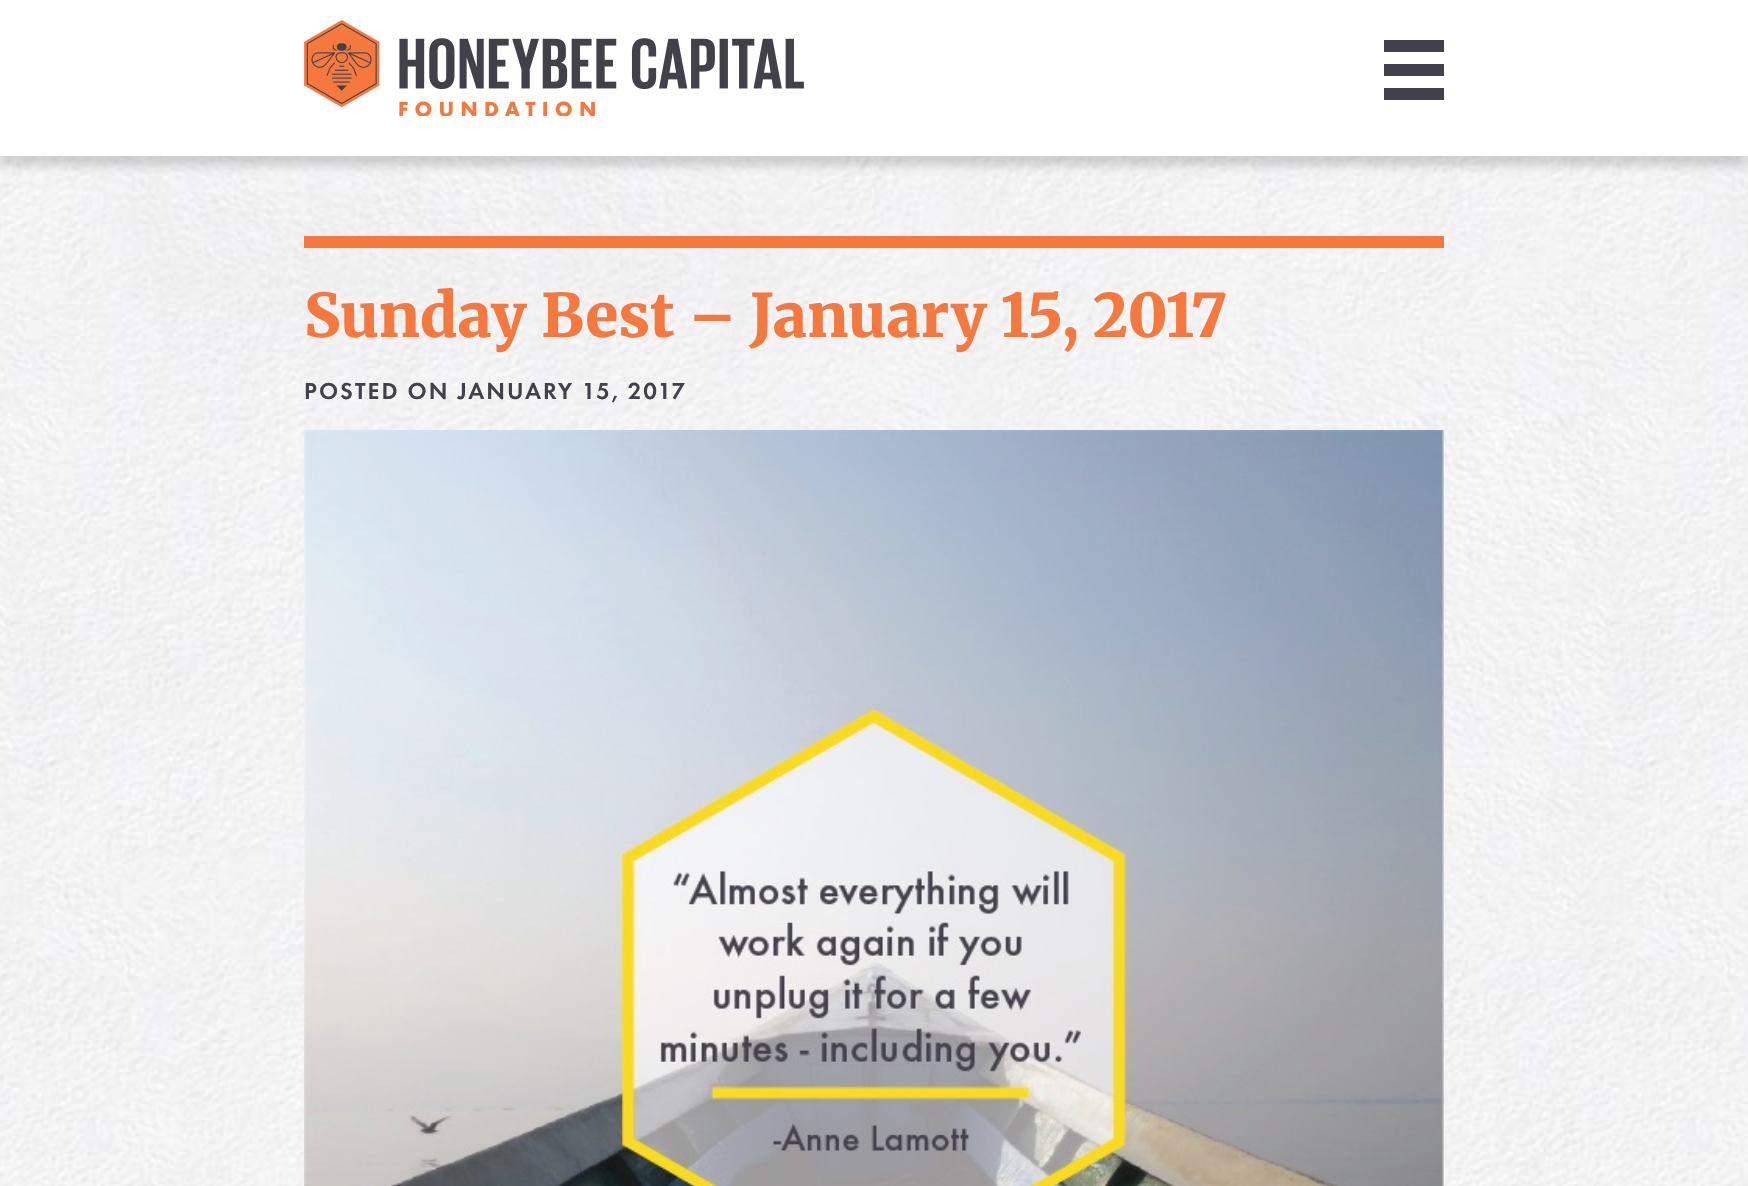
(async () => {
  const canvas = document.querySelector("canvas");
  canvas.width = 1748;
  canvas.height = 1186;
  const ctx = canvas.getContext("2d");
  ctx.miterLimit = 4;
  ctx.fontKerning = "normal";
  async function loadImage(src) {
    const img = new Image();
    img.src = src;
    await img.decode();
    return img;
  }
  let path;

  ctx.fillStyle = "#ffffff";
  ctx.fillRect(0, 0, 1748, 1186);
  ctx.drawImage(await loadImage("img/1.png"), 0, 156, 1748, 1030);
  ctx.fillStyle = "rgba(0, 0, 0, 0.15)";
  ctx.filter = "blur(5px)";
  ctx.beginPath();
  ctx.rect(0, 10, 1748, 156);
  ctx.fill();
  ctx.filter = "none";
  ctx.fillStyle = "#ffffff";
  ctx.fillRect(0, 3, 1748, 153);
  ctx.drawImage(await loadImage("img/2.png"), 304, 20, 500, 96);
  ctx.fillStyle = "#42404a";
  path = new Path2D("M1384 64H1444V76H1384ZM1384 88H1444V100H1384ZM1384 40H1444V52H1384Z");
  ctx.fill(path);
  ctx.fillStyle = "#f5783f";
  ctx.fillRect(304, 236, 1140, 12);
  ctx.drawImage(await loadImage("img/3.png"), 304, 430, 1140, 756);
  ctx.font = "900 60px Merriweather";
  ctx.fillText("Sunday Best – January 15, 2017", 304, 337);
  ctx.letterSpacing = "2px";
  ctx.font = "600 24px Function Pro";
  ctx.fillStyle = "#42404a";
  ctx.fillText("POSTED ON JANUARY 15, 2017", 304, 399);
})();
